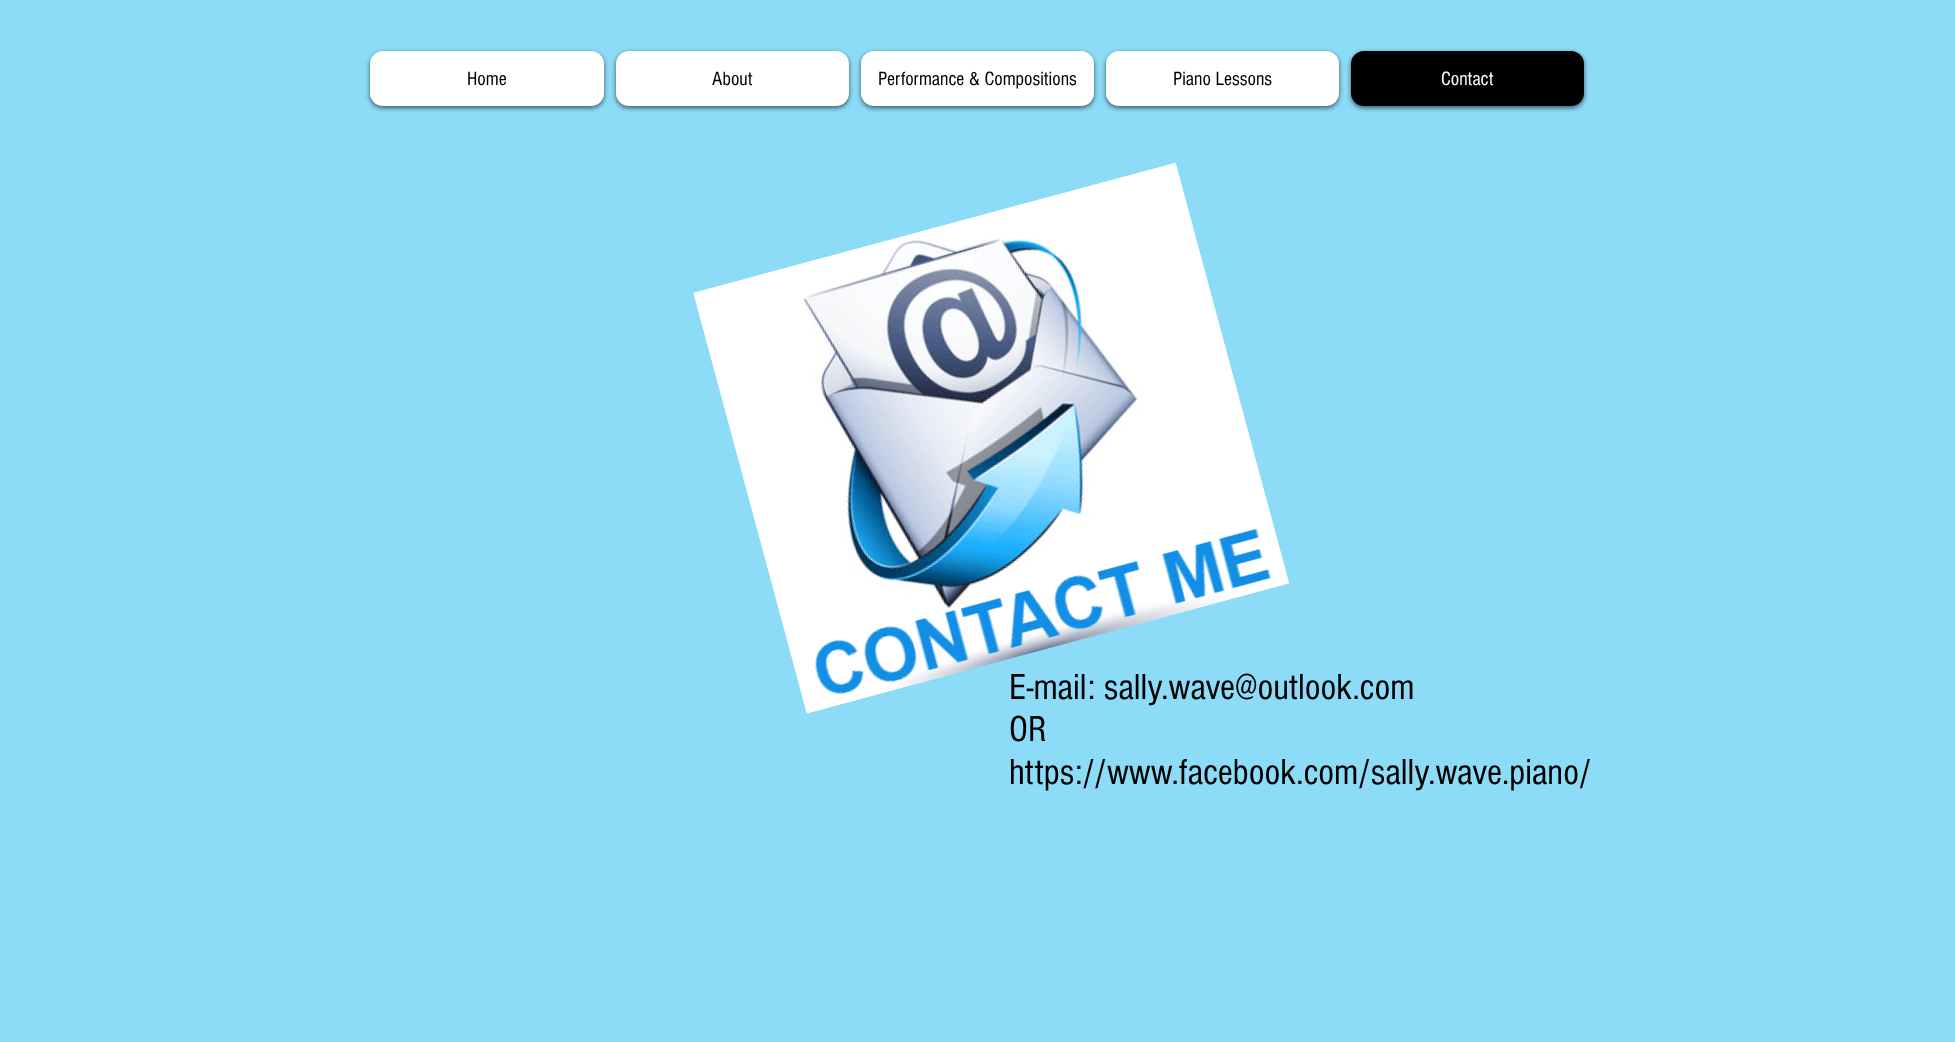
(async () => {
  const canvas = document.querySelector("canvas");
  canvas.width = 1955;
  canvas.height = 1042;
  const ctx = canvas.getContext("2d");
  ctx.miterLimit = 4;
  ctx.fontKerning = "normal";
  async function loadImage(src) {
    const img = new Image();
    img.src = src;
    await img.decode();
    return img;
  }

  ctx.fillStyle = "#8cdcf8";
  ctx.fillRect(0, 0, 1955, 1042);
  ctx.fillStyle = "rgba(0, 0, 0, 0.6)";
  ctx.filter = "blur(2.5px)";
  ctx.beginPath();
  ctx.roundRect(370, 53, 234, 55, 13);
  ctx.fill();
  ctx.filter = "none";
  ctx.fillStyle = "#ffffff";
  ctx.beginPath();
  ctx.roundRect(370, 51, 234, 55, 13);
  ctx.fill();
  ctx.fillStyle = "rgba(0, 0, 0, 0.6)";
  ctx.filter = "blur(2.5px)";
  ctx.beginPath();
  ctx.roundRect(616, 53, 233, 55, 13);
  ctx.fill();
  ctx.filter = "none";
  ctx.fillStyle = "#ffffff";
  ctx.beginPath();
  ctx.roundRect(616, 51, 233, 55, 13);
  ctx.fill();
  ctx.fillStyle = "rgba(0, 0, 0, 0.6)";
  ctx.filter = "blur(2.5px)";
  ctx.beginPath();
  ctx.roundRect(861, 53, 233, 55, 13);
  ctx.fill();
  ctx.filter = "none";
  ctx.fillStyle = "#ffffff";
  ctx.beginPath();
  ctx.roundRect(861, 51, 233, 55, 13);
  ctx.fill();
  ctx.fillStyle = "rgba(0, 0, 0, 0.6)";
  ctx.filter = "blur(2.5px)";
  ctx.beginPath();
  ctx.roundRect(1106, 53, 233, 55, 13);
  ctx.fill();
  ctx.filter = "none";
  ctx.fillStyle = "#ffffff";
  ctx.beginPath();
  ctx.roundRect(1106, 51, 233, 55, 13);
  ctx.fill();
  ctx.fillStyle = "rgba(0, 0, 0, 0.6)";
  ctx.filter = "blur(2.5px)";
  ctx.beginPath();
  ctx.roundRect(1351, 53, 233, 55, 13);
  ctx.fill();
  ctx.filter = "none";
  ctx.fillStyle = "#000000";
  ctx.beginPath();
  ctx.roundRect(1351, 51, 233, 55, 13);
  ctx.fill();
  ctx.drawImage(await loadImage("img/1.png"), 693, 162, 597, 552);
  ctx.font = "20px 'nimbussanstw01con'";
  for (const [text, x, y] of [
    ["Home", 467, 85],
    ["About", 712, 85],
    ["Performance & Compositions", 878, 85],
    ["Piano Lessons", 1173, 85],
  ]) {
    ctx.fillText(text, x, y);
  }
  ctx.fillStyle = "#ffffff";
  ctx.fillText("Contact", 1441, 85);
  ctx.font = "37.5px 'nimbussanstw01con'";
  ctx.fillStyle = "#000000";
  for (const [text, x, y] of [
    ["E-mail: sally.wave@outlook.com", 1009, 699],
    ["OR", 1009, 741],
    ["https://www.facebook.com/sally.wave.piano/", 1009, 784],
  ]) {
    ctx.fillText(text, x, y);
  }
})();
